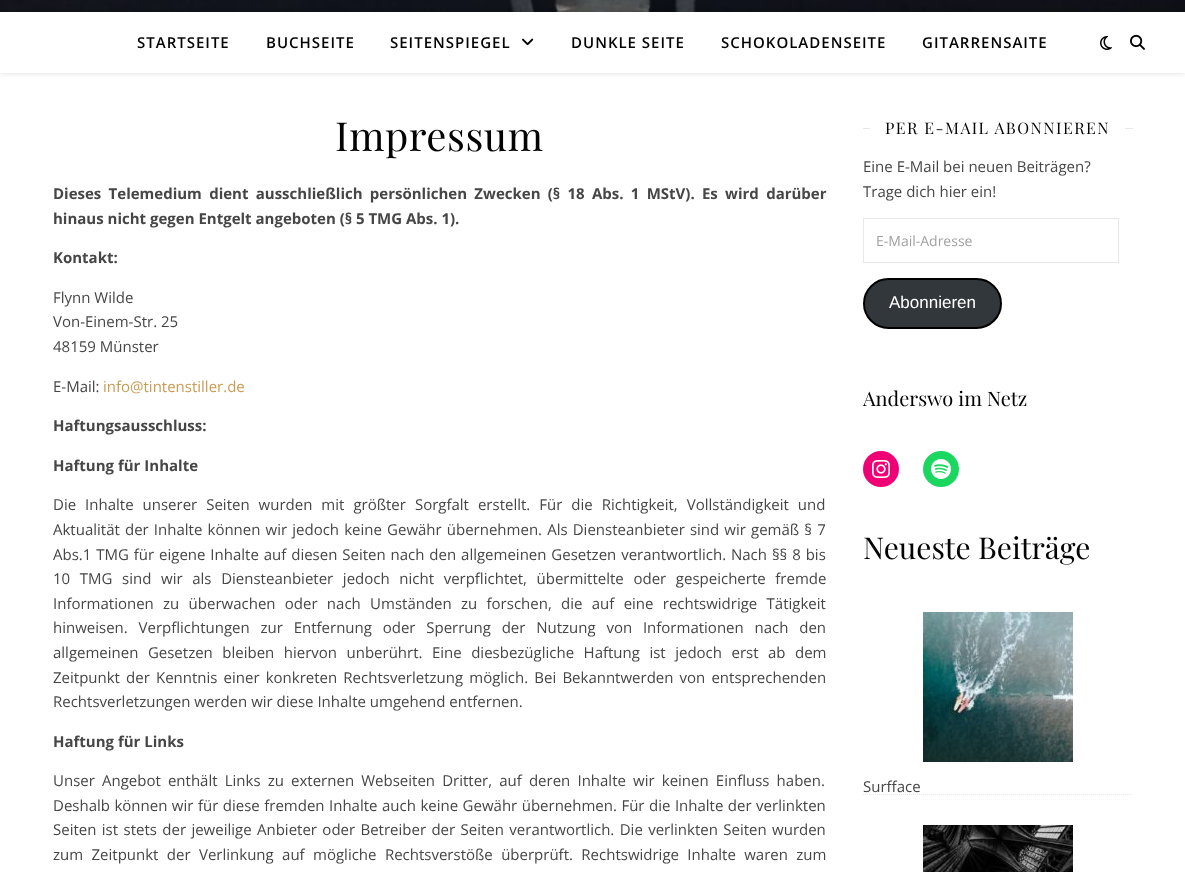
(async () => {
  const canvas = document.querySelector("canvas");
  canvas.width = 1185;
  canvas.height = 872;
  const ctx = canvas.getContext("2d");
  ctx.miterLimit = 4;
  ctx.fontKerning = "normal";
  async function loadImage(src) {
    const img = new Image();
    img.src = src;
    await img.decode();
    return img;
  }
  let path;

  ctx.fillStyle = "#ffffff";
  ctx.fillRect(0, 0, 1185, 872);
  ctx.drawImage(await loadImage("img/1.png"), 0, 0, 1185, 12);
  ctx.save();
  path = new Path2D("M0 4H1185V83H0ZM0 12H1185V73H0Z");
  ctx.clip(path, "evenodd");
  ctx.fillStyle = "rgba(0, 0, 0, 0.1)";
  ctx.filter = "blur(2.5px)";
  ctx.beginPath();
  ctx.rect(0, 13, 1185, 61);
  ctx.fill();
  ctx.filter = "none";
  ctx.restore();
  ctx.drawImage(await loadImage("img/2.png"), 522, 38, 12, 8);
  ctx.drawImage(await loadImage("img/3.png"), 1100, 36, 12, 14);
  ctx.drawImage(await loadImage("img/4.png"), 1130, 34, 15, 16);
  ctx.fillStyle = "#e8e8e8";
  ctx.fillRect(863, 128, 7, 1);
  ctx.fillRect(1125, 128, 8, 1);
  ctx.strokeStyle = "#e8e8e8";
  ctx.strokeRect(863.5, 218.5, 255, 44);
  ctx.fillStyle = "#32373c";
  ctx.beginPath();
  ctx.roundRect(864, 279, 137, 49, 24.5);
  ctx.fill();
  ctx.strokeStyle = "#000000";
  ctx.lineWidth = 2;
  ctx.stroke();
  ctx.fillStyle = "#f00075";
  ctx.beginPath();
  ctx.arc(881, 469, 18, 0, Math.PI * 2);
  ctx.fill();
  ctx.drawImage(await loadImage("img/5.png"), 872, 460, 18, 18);
  ctx.fillStyle = "#1bd760";
  ctx.beginPath();
  ctx.arc(941, 469, 18, 0, Math.PI * 2);
  ctx.fill();
  ctx.drawImage(await loadImage("img/6.png"), 931, 459, 20, 20);
  path = new Path2D("M863 794.5H1133");
  ctx.strokeStyle = "#e8e8e8";
  ctx.lineWidth = 1;
  ctx.setLineDash([1, 1]);
  ctx.stroke(path);
  ctx.drawImage(await loadImage("img/7.png"), 923, 612, 150, 150);
  ctx.drawImage(await loadImage("img/8.png"), 923, 825, 150, 47);
  ctx.letterSpacing = "1px";
  ctx.font = "600 15px Open Sans";
  ctx.fillStyle = "#030303";
  for (const [text, x, y] of [
    ["STARTSEITE", 137, 48],
    ["BUCHSEITE", 266, 48],
    ["SEITENSPIEGEL", 390, 48],
    ["DUNKLE SEITE", 571, 48],
    ["SCHOKOLADENSEITE", 721, 48],
    ["GITARRENSAITE", 922, 48],
  ]) {
    ctx.fillText(text, x, y);
  }
  ctx.letterSpacing = "0.5px";
  ctx.font = "40px Playfair Display";
  ctx.fillText("Impressum", 335, 151);
  ctx.letterSpacing = "0px";
  ctx.wordSpacing = "3.4px";
  ctx.font = "bold 15px Open Sans";
  ctx.fillStyle = "#464646";
  ctx.fillText("Dieses Telemedium dient ausschließlich persönlichen Zwecken (§ 18 Abs. 1 MStV). Es wird darüber", 53, 199);
  ctx.wordSpacing = "0px";
  ctx.fillText("hinaus nicht gegen Entgelt angeboten (§ 5 TMG Abs. 1).", 53, 224);
  ctx.fillText("Kontakt:", 53, 263);
  ctx.font = "15px Open Sans";
  for (const [text, x, y] of [
    ["Flynn Wilde", 53, 303],
    ["Von-Einem-Str. 25", 53, 327],
    ["48159 Münster", 53, 352],
    ["E-Mail:", 53, 392],
  ]) {
    ctx.fillText(text, x, y);
  }
  ctx.fillStyle = "#ca9b52";
  ctx.fillText("info@tintenstiller.de", 103, 392);
  ctx.font = "bold 15px Open Sans";
  ctx.fillStyle = "#464646";
  ctx.fillText("Haftungsausschluss:", 53, 431);
  ctx.fillText("Haftung für Inhalte", 53, 471);
  ctx.wordSpacing = "5.1px";
  ctx.font = "15px Open Sans";
  ctx.fillText("Die Inhalte unserer Seiten wurden mit größter Sorgfalt erstellt. Für die Richtigkeit, Vollständigkeit und", 53, 510);
  ctx.wordSpacing = "1.25px";
  ctx.fillText("Aktualität der Inhalte können wir jedoch keine Gewähr übernehmen. Als Diensteanbieter sind wir gemäß § 7", 53, 535);
  ctx.wordSpacing = "1px";
  ctx.fillText("Abs.1 TMG für eigene Inhalte auf diesen Seiten nach den allgemeinen Gesetzen verantwortlich. Nach §§ 8 bis", 53, 560);
  ctx.wordSpacing = "5.75px";
  ctx.fillText("10 TMG sind wir als Diensteanbieter jedoch nicht verpflichtet, übermittelte oder gespeicherte fremde", 53, 584);
  ctx.wordSpacing = "5.4px";
  ctx.fillText("Informationen zu überwachen oder nach Umständen zu forschen, die auf eine rechtswidrige Tätigkeit", 53, 609);
  ctx.wordSpacing = "6.9px";
  ctx.fillText("hinweisen. Verpflichtungen zur Entfernung oder Sperrung der Nutzung von Informationen nach den", 53, 633);
  ctx.wordSpacing = "5.6px";
  ctx.fillText("allgemeinen Gesetzen bleiben hiervon unberührt. Eine diesbezügliche Haftung ist jedoch erst ab dem", 53, 658);
  ctx.wordSpacing = "2.25px";
  ctx.fillText("Zeitpunkt der Kenntnis einer konkreten Rechtsverletzung möglich. Bei Bekanntwerden von entsprechenden", 53, 683);
  ctx.wordSpacing = "0px";
  ctx.fillText("Rechtsverletzungen werden wir diese Inhalte umgehend entfernen.", 53, 707);
  ctx.font = "bold 15px Open Sans";
  ctx.fillText("Haftung für Links", 53, 747);
  ctx.wordSpacing = "3.25px";
  ctx.font = "15px Open Sans";
  ctx.fillText("Unser Angebot enthält Links zu externen Webseiten Dritter, auf deren Inhalte wir keinen Einfluss haben.", 53, 786);
  ctx.wordSpacing = "0.6px";
  ctx.fillText("Deshalb können wir für diese fremden Inhalte auch keine Gewähr übernehmen. Für die Inhalte der verlinkten", 53, 811);
  ctx.wordSpacing = "1.5px";
  ctx.fillText("Seiten ist stets der jeweilige Anbieter oder Betreiber der Seiten verantwortlich. Die verlinkten Seiten wurden", 53, 835);
  ctx.wordSpacing = "4.5px";
  ctx.fillText("zum Zeitpunkt der Verlinkung auf mögliche Rechtsverstöße überprüft. Rechtswidrige Inhalte waren zum", 53, 860);
  ctx.letterSpacing = "1.5px";
  ctx.wordSpacing = "0px";
  ctx.font = "16px Playfair Display";
  ctx.fillStyle = "#030303";
  ctx.fillText("PER E-MAIL ABONNIEREN", 885, 134);
  ctx.letterSpacing = "0px";
  ctx.font = "15px Open Sans";
  ctx.fillStyle = "#464646";
  ctx.fillText("Eine E-Mail bei neuen Beiträgen?", 863, 172);
  ctx.fillText("Trage dich hier ein!", 863, 197);
  ctx.font = "14px Open Sans";
  ctx.fillStyle = "#a1a1a1";
  ctx.fillText("E-Mail-Adresse", 876, 246);
  ctx.font = "17px Liberation Sans";
  ctx.fillStyle = "#ffffff";
  ctx.fillText("Abonnieren", 889, 308);
  ctx.font = "20px Playfair Display";
  ctx.fillStyle = "#030303";
  ctx.fillText("Anderswo im Netz", 863, 406);
  ctx.font = "30px Playfair Display";
  ctx.fillText("Neueste Beiträge", 863, 559);
  ctx.font = "15px Open Sans";
  ctx.fillStyle = "#464646";
  ctx.fillText("Surfface", 863, 792);
})();
